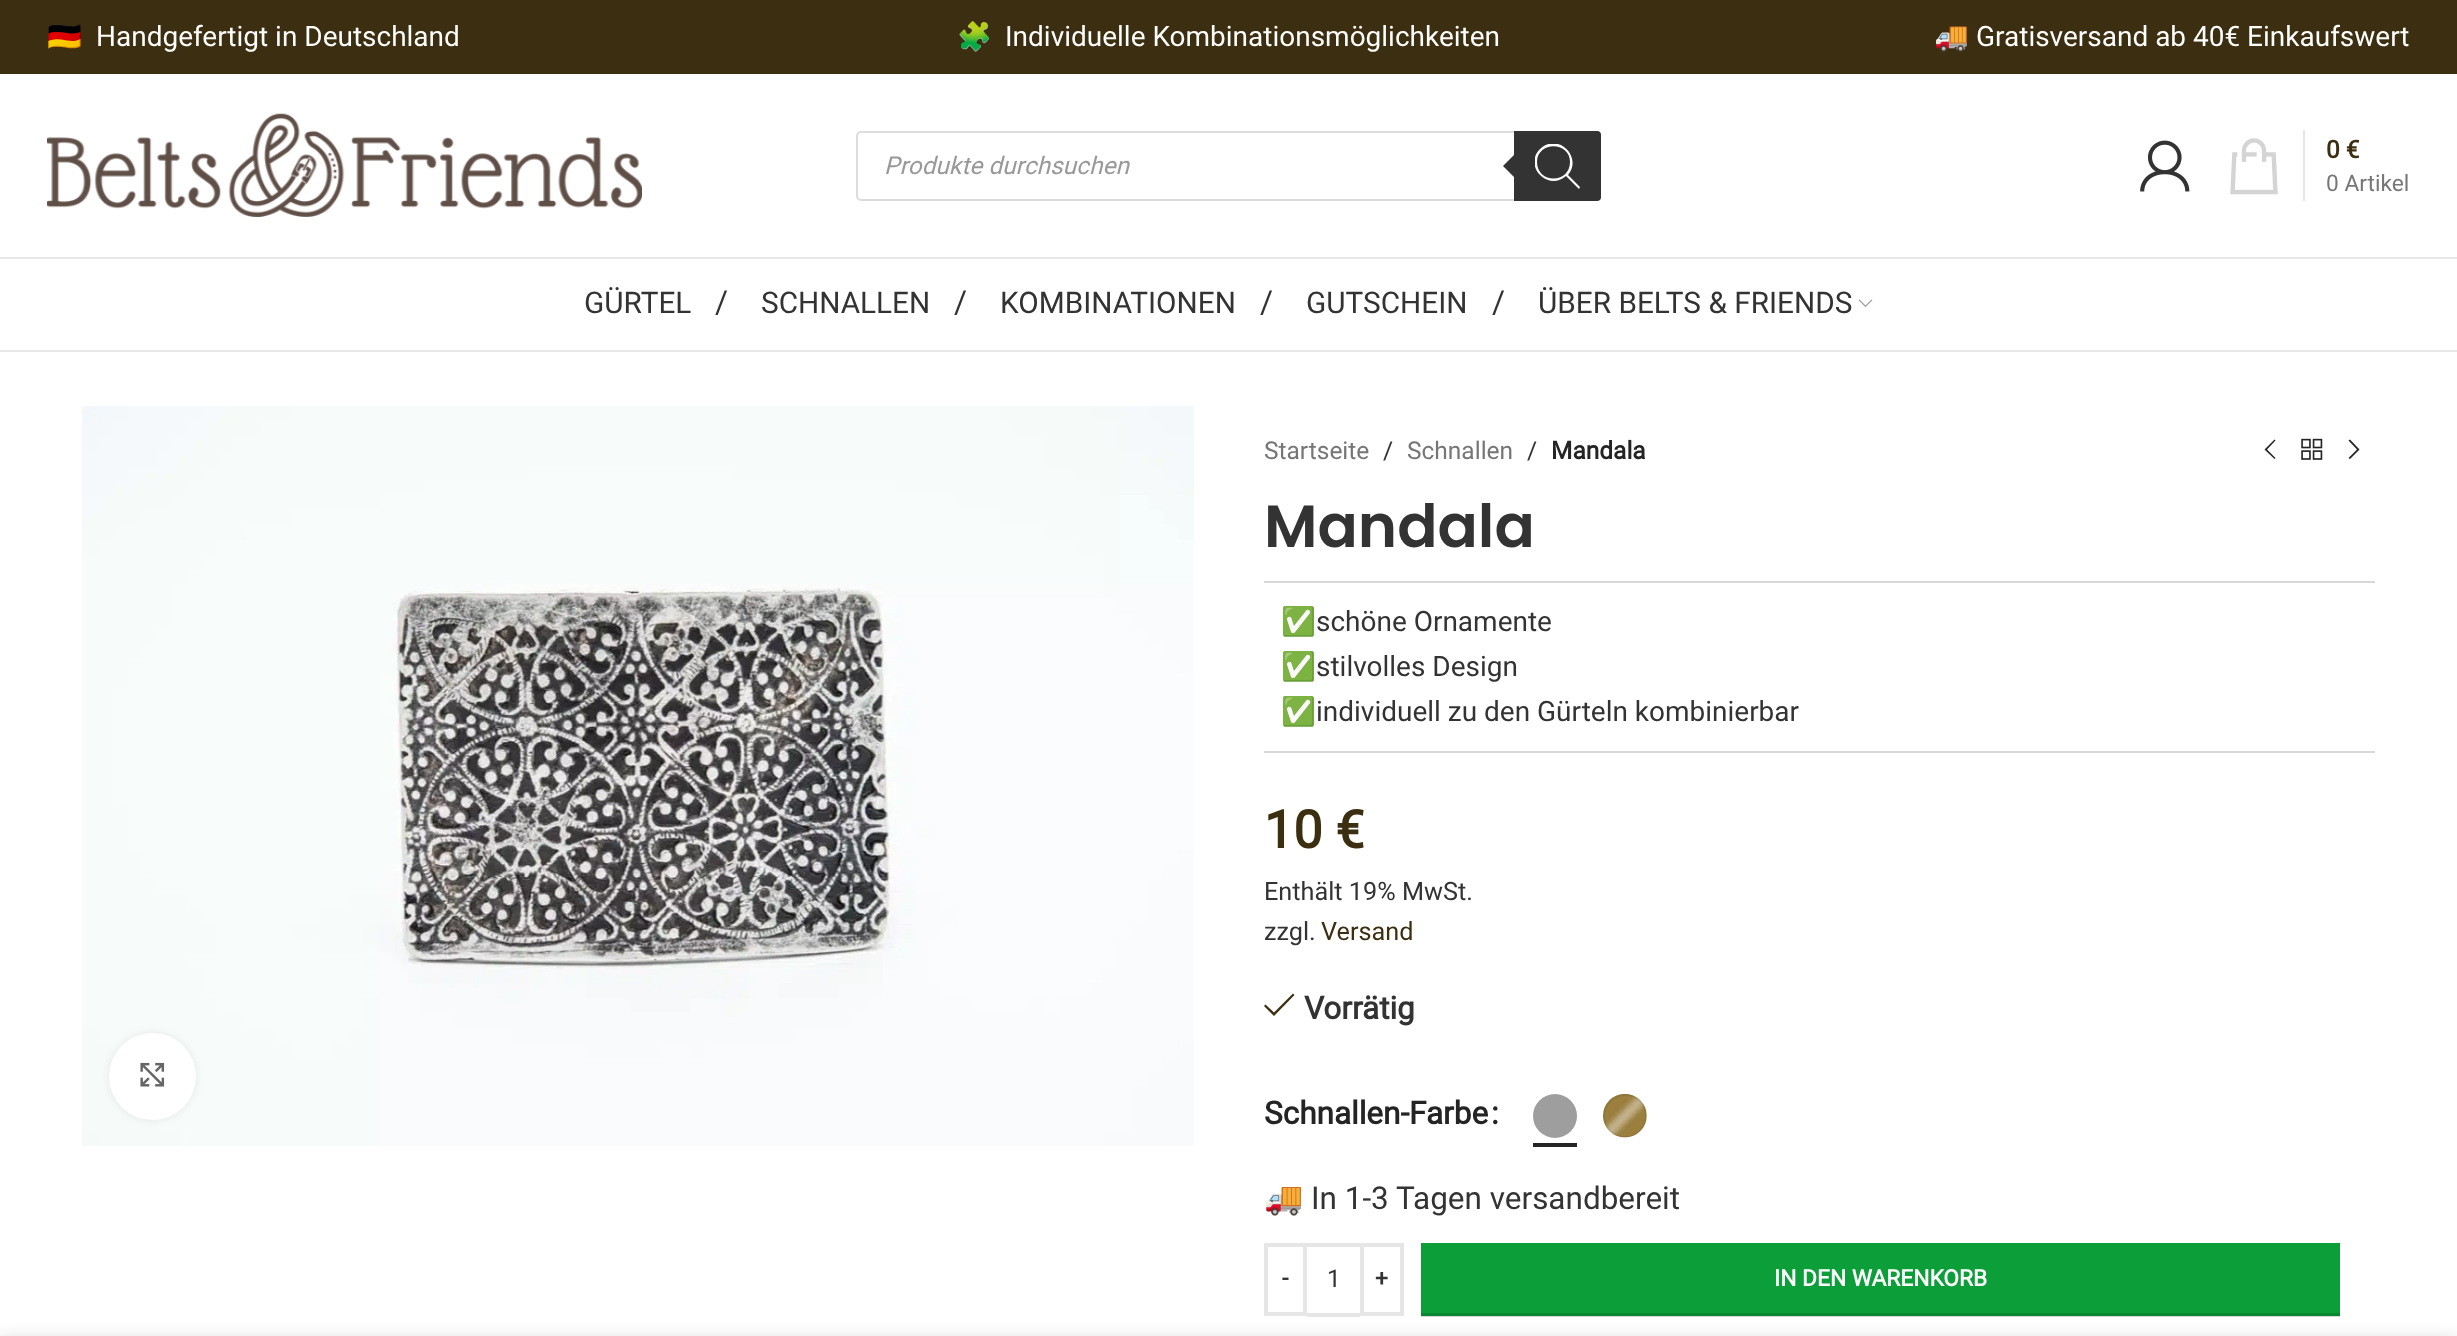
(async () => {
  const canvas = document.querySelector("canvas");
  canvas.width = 2457;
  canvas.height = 1336;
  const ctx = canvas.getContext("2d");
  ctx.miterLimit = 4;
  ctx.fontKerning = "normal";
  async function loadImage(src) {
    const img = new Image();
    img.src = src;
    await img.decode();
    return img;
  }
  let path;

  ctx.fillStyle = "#ffffff";
  ctx.fillRect(0, 0, 2457, 1336);
  for (const [x, y, w, h, color] of [
    [1421, 1316, 919, 1, "#d9d9d9"],
    [0, 0, 2457, 74, "#3c2e10"],
    [0, 257, 2457, 2, "#e8e8e8"],
  ]) {
    ctx.fillStyle = color;
    ctx.fillRect(x, y, w, h);
  }
  ctx.drawImage(await loadImage("img/1.png"), 47, 113, 595, 104);
  ctx.beginPath();
  ctx.roundRect(857, 132, 743, 68, 4);
  ctx.strokeStyle = "#dddddd";
  ctx.lineWidth = 2;
  ctx.stroke();
  ctx.fillStyle = "#333333";
  ctx.beginPath();
  ctx.roundRect(1514, 131, 87, 70, [0, 4, 4, 0]);
  ctx.fill();
  path = new Path2D("M1517 152V180L1503 166Z");
  ctx.fill(path);
  ctx.save();
  ctx.beginPath();
  ctx.rect(1535, 144, 45, 45);
  ctx.clip();
  ctx.fillStyle = "#ffffff";
  path = new Path2D("M1580 187L1568 175C1583 157 1558 132 1540 149C1523 166 1548 192 1566 176L1579 189ZM1537 162C1537 141 1570 141 1570 162C1570 184 1537 184 1537 162Z");
  ctx.fill(path);
  ctx.restore();
  ctx.drawImage(await loadImage("img/2.png"), 2140, 140, 50, 52);
  ctx.drawImage(await loadImage("img/3.png"), 2230, 138, 48, 57);
  ctx.fillStyle = "#e6e6e6";
  ctx.fillRect(2303, 130, 2, 71);
  ctx.fillStyle = "#e8e8e8";
  ctx.fillRect(0, 350, 2457, 2);
  ctx.drawImage(await loadImage("img/4.png"), 1858, 299, 15, 8);
  ctx.drawImage(await loadImage("img/5.png"), 82, 406, 1112, 740);
  ctx.fillStyle = "rgba(0, 0, 0, 0.08)";
  ctx.filter = "blur(4.5px)";
  ctx.beginPath();
  ctx.roundRect(109, 1033, 87, 87, 43.5);
  ctx.fill();
  ctx.filter = "none";
  ctx.fillStyle = "#ffffff";
  ctx.beginPath();
  ctx.arc(152.5, 1076.5, 43.5, 0, Math.PI * 2);
  ctx.fill();
  ctx.drawImage(await loadImage("img/6.png"), 140, 1062, 25, 25);
  ctx.fillStyle = "#242424";
  path = new Path2D("M2275.5 440.5L2274.5 439.5L2264.5 449.5L2274.5 459L2275.5 458L2267 449.5Z");
  ctx.fill(path);
  ctx.drawImage(await loadImage("img/7.png"), 2301, 438, 22, 22);
  path = new Path2D("M2348.5 440.5L2357 449.5L2348.5 458L2350 459L2359.5 449.5L2350 439.5Z");
  ctx.fill(path);
  ctx.fillStyle = "#d8d8d8";
  ctx.fillRect(1264, 581, 1111, 2);
  ctx.fillRect(1264, 751, 1111, 2);
  ctx.fillStyle = "#3c2e10";
  path = new Path2D("M1294.5 995L1293 993.5L1274 1012.5L1265.5 1004.5L1264 1006L1274 1016Z");
  ctx.fill(path);
  ctx.fillStyle = "#9e9e9e";
  ctx.beginPath();
  ctx.arc(1555, 1116, 22, 0, Math.PI * 2);
  ctx.fill();
  ctx.fillStyle = "#242424";
  ctx.fillRect(1533, 1143, 44, 4);
  ctx.drawImage(await loadImage("img/8.png"), 1603, 1093, 44, 45);
  ctx.beginPath();
  ctx.arc(1625, 1116, 21, 0, Math.PI * 2);
  ctx.strokeStyle = "rgba(0, 0, 0, 0.07)";
  ctx.stroke();
  ctx.strokeStyle = "#e6e6e6";
  ctx.lineWidth = 4;
  ctx.strokeRect(1266, 1245, 39, 69);
  ctx.fillStyle = "#e6e6e6";
  ctx.fillRect(1307, 1243, 53, 4);
  ctx.fillRect(1307, 1313, 53, 4);
  ctx.strokeRect(1362, 1245, 40, 69);
  ctx.fillStyle = "#0c9f39";
  ctx.fillRect(1421, 1243, 919, 70);
  ctx.fillStyle = "#0a8730";
  ctx.fillRect(1421, 1313, 919, 3);
  ctx.fillStyle = "rgba(0, 0, 0, 0.12)";
  ctx.filter = "blur(8px)";
  ctx.beginPath();
  ctx.rect(0, 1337, 2457, 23);
  ctx.fill();
  ctx.filter = "none";
  ctx.font = "28px Noto Color Emoji";
  ctx.fillStyle = "#ffffff";
  ctx.fillText("🇩🇪", 47, 46);
  ctx.font = "28px Roboto";
  ctx.fillText("Handgefertigt in Deutschland", 96, 46);
  ctx.font = "28px Noto Color Emoji";
  ctx.fillText("🧩", 957, 46);
  ctx.font = "28px Roboto";
  ctx.fillText("Individuelle Kombinationsmöglichkeiten", 1005, 46);
  ctx.font = "28px Noto Color Emoji";
  ctx.fillText("🚚", 1934, 46);
  ctx.font = "28px Roboto";
  ctx.fillText("Gratisversand ab 40€ Einkaufswert", 1976, 46);
  ctx.font = "italic 24.5px Roboto";
  ctx.fillStyle = "#999999";
  ctx.fillText("Produkte durchsuchen", 884, 174);
  ctx.font = "bold 24.5px Roboto";
  ctx.fillStyle = "#3c2e10";
  ctx.fillText("0 €", 2326, 158);
  ctx.font = "22.75px Roboto";
  ctx.fillStyle = "#767676";
  ctx.fillText("0 Artikel", 2326, 191);
  ctx.font = "29.75px Roboto";
  ctx.fillStyle = "#333333";
  ctx.fillText("GÜRTEL", 584, 313);
  ctx.font = "31.5px Roboto";
  ctx.fillText("/", 715, 313);
  ctx.font = "29.75px Roboto";
  ctx.fillText("SCHNALLEN", 761, 313);
  ctx.font = "31.5px Roboto";
  ctx.fillText("/", 954, 313);
  ctx.font = "29.75px Roboto";
  ctx.fillText("KOMBINATIONEN", 1000, 313);
  ctx.font = "31.5px Roboto";
  ctx.fillText("/", 1260, 313);
  ctx.font = "29.75px Roboto";
  ctx.fillText("GUTSCHEIN", 1306, 313);
  ctx.font = "31.5px Roboto";
  ctx.fillText("/", 1492, 313);
  ctx.font = "29.75px Roboto";
  ctx.fillText("ÜBER BELTS & FRIENDS", 1538, 313);
  ctx.font = "24.5px Roboto";
  ctx.fillStyle = "#767676";
  ctx.fillText("Startseite", 1264, 459);
  ctx.fillStyle = "#333333";
  ctx.fillText("/", 1383, 459);
  ctx.fillStyle = "#767676";
  ctx.fillText("Schnallen", 1407, 459);
  ctx.fillStyle = "#333333";
  ctx.fillText("/", 1527, 459);
  ctx.font = "bold 24.5px Roboto";
  ctx.fillStyle = "#242424";
  ctx.fillText("Mandala", 1551, 459);
  ctx.font = "600 59.5px Poppins";
  ctx.fillStyle = "#333333";
  ctx.fillText("Mandala", 1264, 547);
  ctx.font = "28px Noto Color Emoji";
  ctx.fillText("✅", 1281, 631);
  ctx.font = "28px Roboto";
  ctx.fillText("schöne Ornamente", 1316, 631);
  ctx.font = "28px Noto Color Emoji";
  ctx.fillText("✅", 1281, 676);
  ctx.font = "28px Roboto";
  ctx.fillText("stilvolles Design", 1316, 676);
  ctx.font = "28px Noto Color Emoji";
  ctx.fillText("✅", 1281, 721);
  ctx.font = "28px Roboto";
  ctx.fillText("individuell zu den Gürteln kombinierbar", 1316, 721);
  ctx.font = "bold 52px Roboto";
  ctx.fillStyle = "#3c2e10";
  ctx.fillText("10 €", 1264, 848);
  ctx.font = "25.25px Roboto";
  ctx.fillStyle = "#333333";
  ctx.fillText("Enthält 19% MwSt.", 1264, 900);
  ctx.fillText("zzgl.", 1264, 940);
  ctx.fillStyle = "#3c2e10";
  ctx.fillText("Versand", 1321, 940);
  ctx.font = "bold 31.5px Roboto";
  ctx.fillStyle = "#333333";
  ctx.fillText("Vorrätig", 1304, 1019);
  ctx.fillStyle = "#242424";
  ctx.fillText("Schnallen-Farbe", 1264, 1124);
  ctx.fillText(":", 1491, 1124);
  ctx.font = "31.5px Noto Color Emoji";
  ctx.fillStyle = "#333333";
  ctx.fillText("🚚", 1264, 1209);
  ctx.font = "31.5px Roboto";
  ctx.fillText("In 1-3 Tagen versandbereit", 1311, 1209);
  ctx.font = "bold 22.75px Roboto";
  ctx.fillText("-", 1282, 1286);
  ctx.font = "24.5px Roboto";
  ctx.fillText("1", 1327, 1287);
  ctx.font = "bold 22.75px Roboto";
  ctx.fillText("+", 1375, 1286);
  ctx.fillStyle = "#ffffff";
  ctx.fillText("IN DEN WARENKORB", 1774, 1286);
})();
